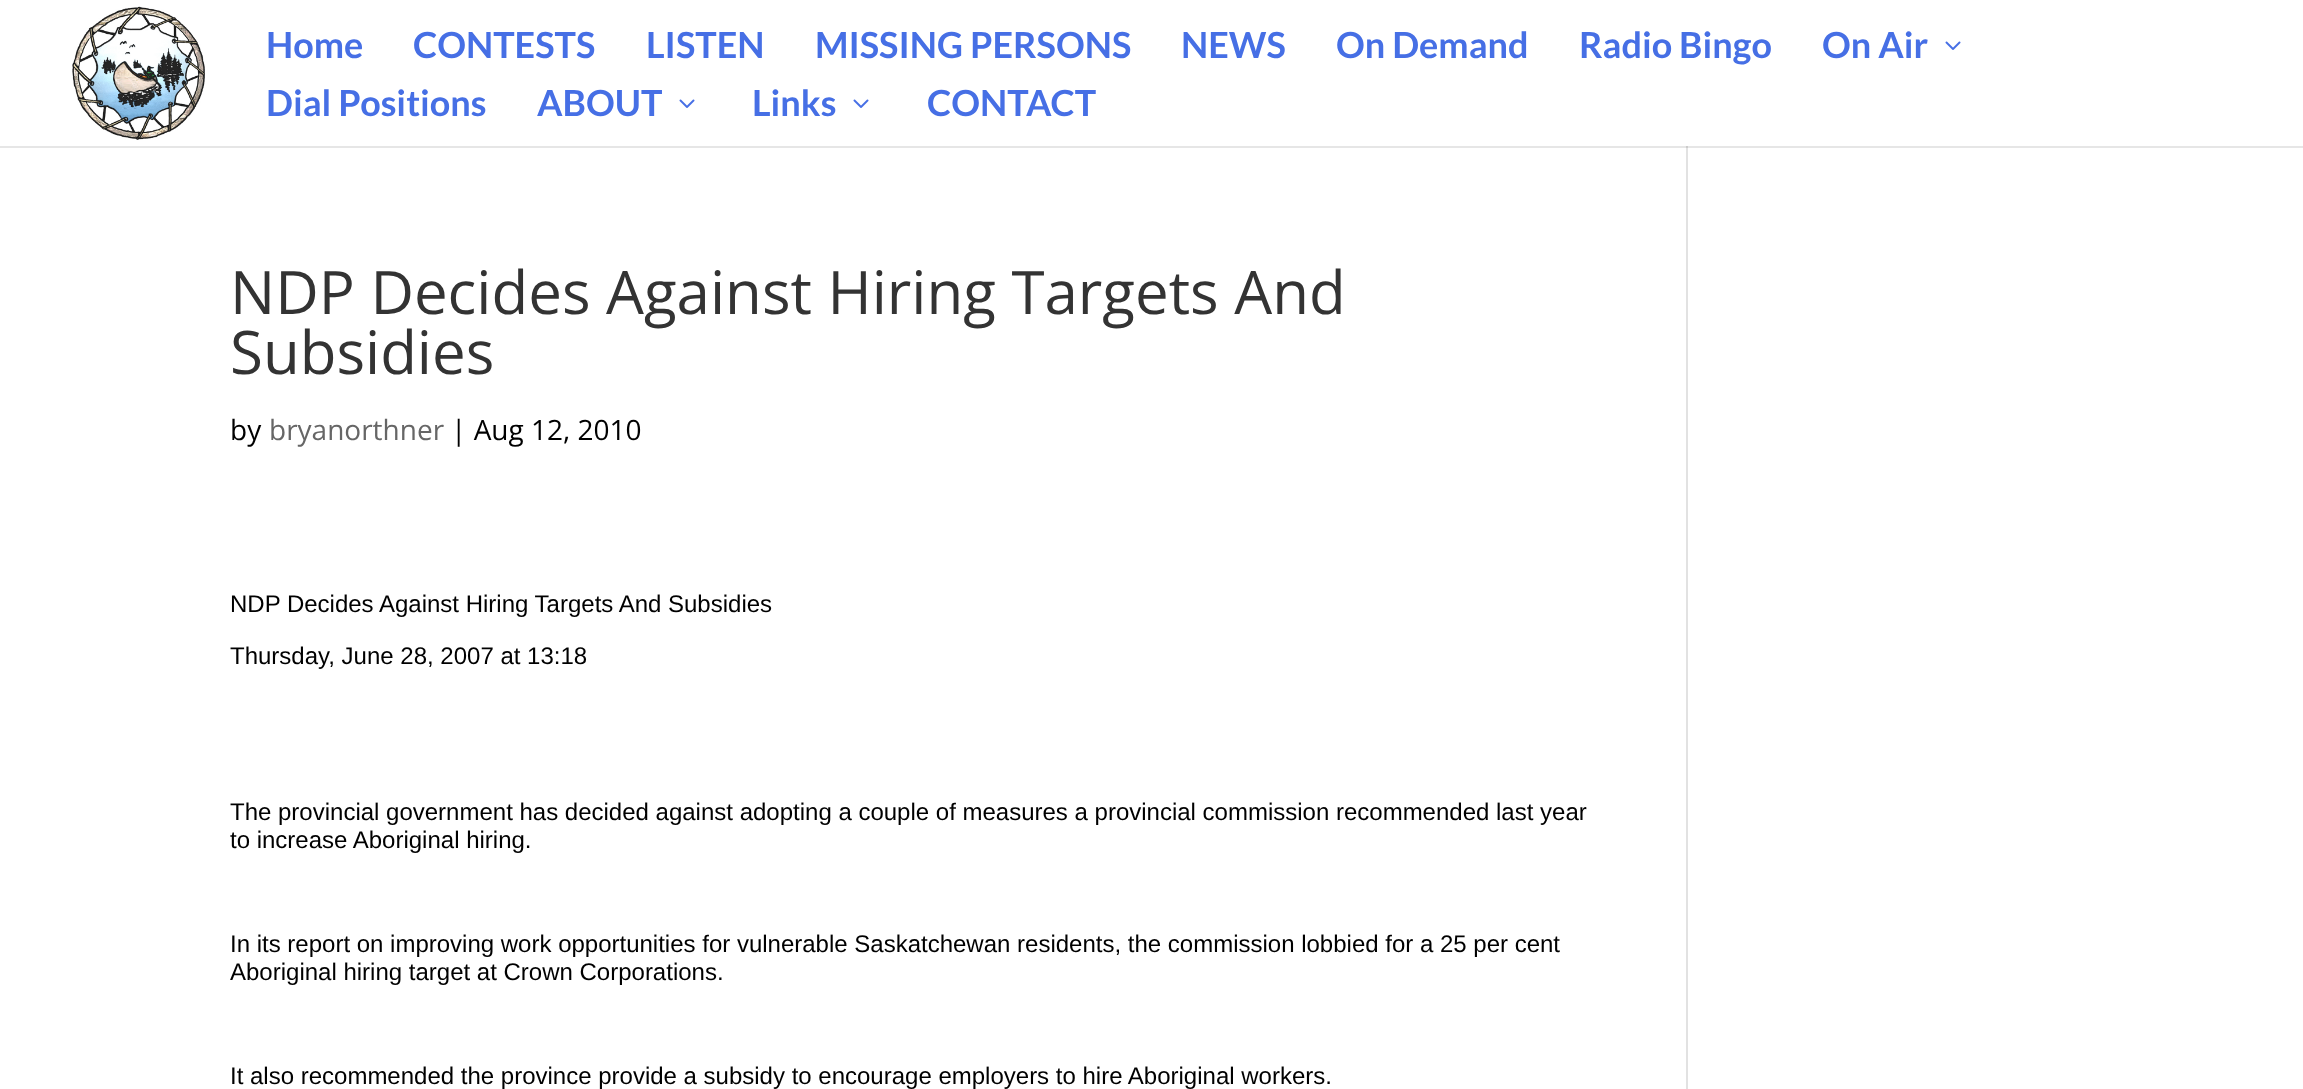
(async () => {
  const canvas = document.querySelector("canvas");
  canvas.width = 2303;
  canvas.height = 1089;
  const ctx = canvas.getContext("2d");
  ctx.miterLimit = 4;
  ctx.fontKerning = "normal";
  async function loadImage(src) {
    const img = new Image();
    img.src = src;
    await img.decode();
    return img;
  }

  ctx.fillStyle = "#ffffff";
  ctx.fillRect(0, 0, 2303, 1089);
  ctx.drawImage(await loadImage("img/1.png"), 72, 6, 133, 134);
  ctx.drawImage(await loadImage("img/2.png"), 1945, 41, 16, 9);
  ctx.drawImage(await loadImage("img/2.png"), 679, 99, 16, 9);
  ctx.drawImage(await loadImage("img/2.png"), 853, 99, 16, 9);
  for (const [x, y, w, h, color] of [
    [0, 146, 2303, 2, "#e6e6e6"],
    [1686, 146, 2, 943, "#e2e2e2"],
    [1686, 146, 2, 2, "#cbcbcb"],
  ]) {
    ctx.fillStyle = color;
    ctx.fillRect(x, y, w, h);
  }
  ctx.font = "bold 36px Lato";
  ctx.fillStyle = "#466fe5";
  for (const [text, x, y] of [
    ["Home", 266, 58],
    ["CONTESTS", 413, 58],
    ["LISTEN", 646, 58],
    ["MISSING PERSONS", 815, 58],
    ["NEWS", 1181, 58],
    ["On Demand", 1336, 58],
    ["Radio Bingo", 1579, 58],
    ["On Air", 1822, 58],
    ["Dial Positions", 266, 116],
    ["ABOUT", 537, 116],
    ["Links", 752, 116],
    ["CONTACT", 927, 116],
  ]) {
    ctx.fillText(text, x, y);
  }
  ctx.font = "60px Open Sans";
  ctx.fillStyle = "#333333";
  ctx.fillText("NDP Decides Against Hiring Targets And", 230, 314);
  ctx.fillText("Subsidies", 230, 374);
  ctx.font = "28px Open Sans";
  ctx.fillStyle = "#000000";
  ctx.fillText("by", 230, 440);
  ctx.fillStyle = "#666666";
  ctx.fillText("bryanorthner", 269, 440);
  ctx.fillStyle = "#000000";
  ctx.fillText("| Aug 12, 2010", 451, 440);
  ctx.font = "24px Liberation Sans";
  for (const [text, x, y] of [
    ["NDP Decides Against Hiring Targets And Subsidies", 230, 612],
    ["Thursday, June 28, 2007 at 13:18", 230, 664],
    ["The provincial government has decided against adopting a couple of measures a provincial commission recommended last year", 230, 820],
    ["to increase Aboriginal hiring.", 230, 848],
    ["In its report on improving work opportunities for vulnerable Saskatchewan residents, the commission lobbied for a 25 per cent", 230, 952],
    ["Aboriginal hiring target at Crown Corporations.", 230, 980],
    ["It also recommended the province provide a subsidy to encourage employers to hire Aboriginal workers.", 230, 1084],
  ]) {
    ctx.fillText(text, x, y);
  }
})();
